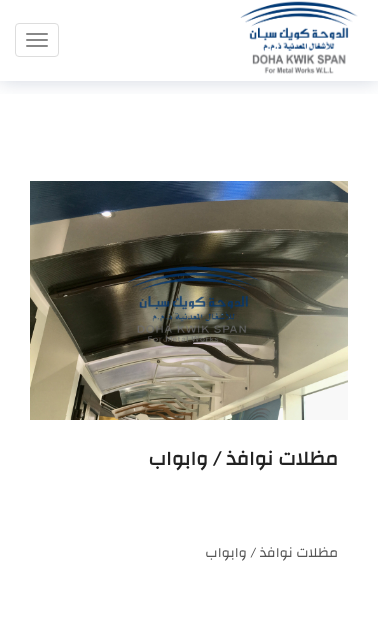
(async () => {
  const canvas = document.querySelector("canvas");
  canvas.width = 378;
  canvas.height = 633;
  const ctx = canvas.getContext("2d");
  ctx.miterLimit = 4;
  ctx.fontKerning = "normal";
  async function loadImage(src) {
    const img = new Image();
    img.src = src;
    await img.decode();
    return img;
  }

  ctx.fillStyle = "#ffffff";
  ctx.fillRect(0, 0, 378, 633);
  ctx.save();
  ctx.beginPath();
  ctx.rect(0, 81, 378, 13);
  ctx.clip();
  ctx.fillStyle = "rgba(21, 47, 95, 0.2)";
  ctx.filter = "blur(10px)";
  ctx.beginPath();
  ctx.rect(0, 0, 378, 81);
  ctx.fill();
  ctx.filter = "none";
  ctx.restore();
  ctx.drawImage(await loadImage("img/1.png"), 240, 1, 118, 73);
  ctx.beginPath();
  ctx.roundRect(15.5, 23.5, 43, 33, 3.5);
  ctx.strokeStyle = "#dddddd";
  ctx.stroke();
  ctx.fillStyle = "#888888";
  ctx.beginPath();
  ctx.roundRect(26, 33, 22, 2, 1);
  ctx.fill();
  ctx.beginPath();
  ctx.roundRect(26, 39, 22, 2, 1);
  ctx.fill();
  ctx.beginPath();
  ctx.roundRect(26, 45, 22, 2, 1);
  ctx.fill();
  ctx.drawImage(await loadImage("img/2.png"), 30, 181, 318, 239);
  ctx.direction = "rtl";
  ctx.font = "bold 20px Changa";
  ctx.fillStyle = "#222222";
  ctx.fillText("مظلات نوافذ / وابواب", 338, 465);
  ctx.font = "14px Changa";
  ctx.fillStyle = "#555555";
  ctx.fillText("مظلات نوافذ / وابواب", 338, 557);
})();
